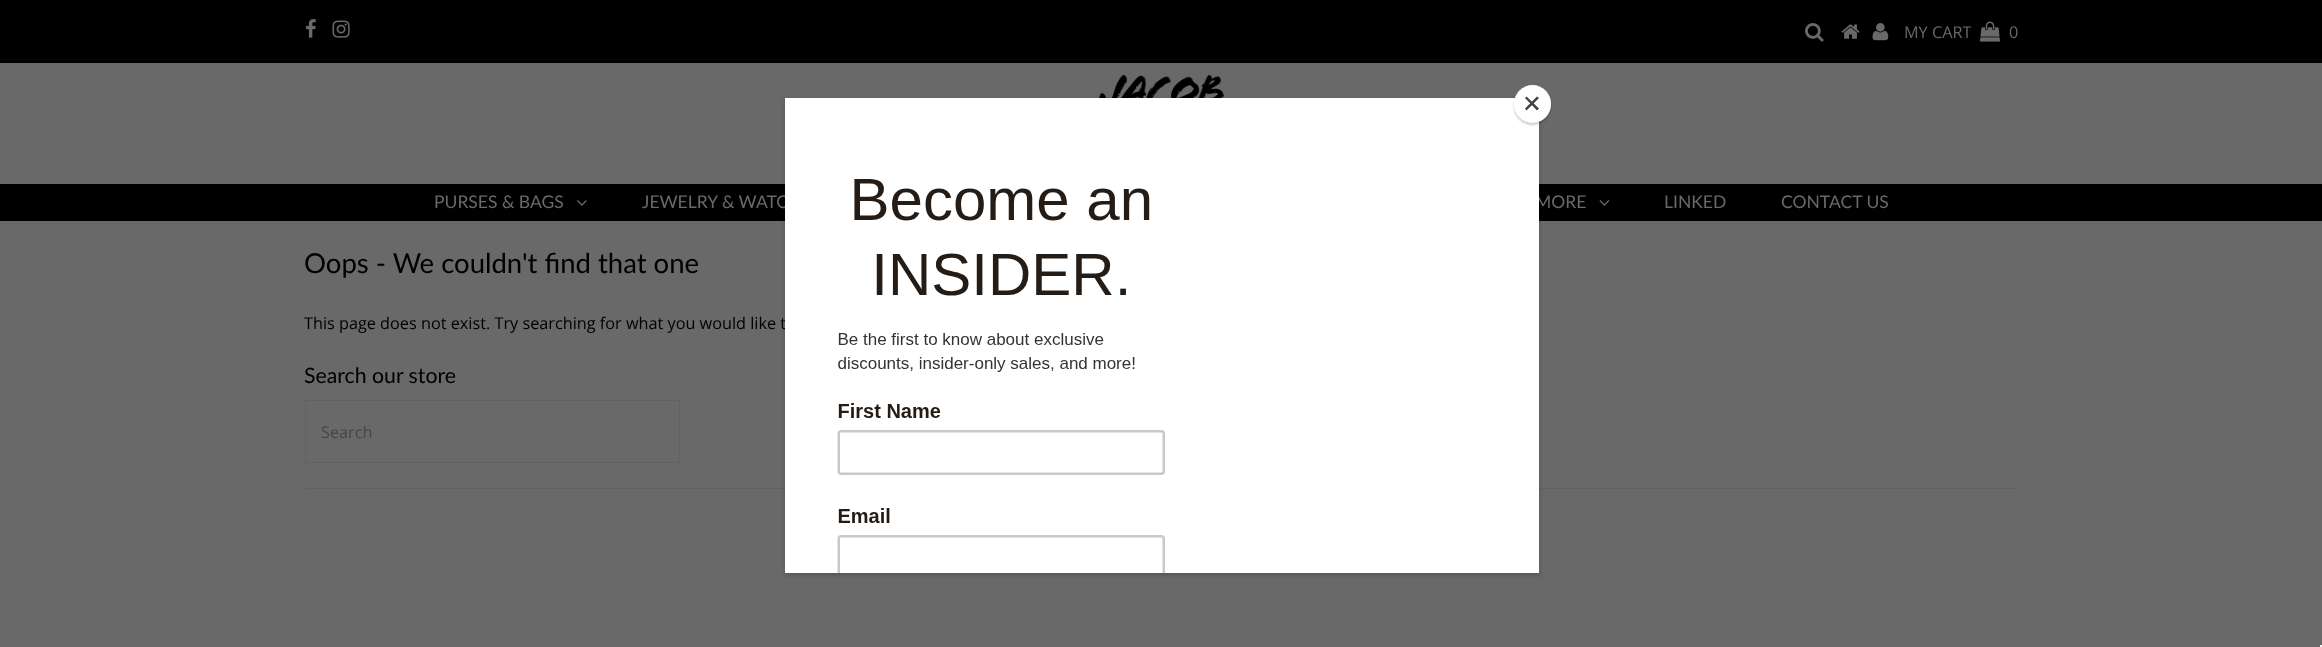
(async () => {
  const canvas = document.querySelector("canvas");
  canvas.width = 2322;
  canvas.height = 647;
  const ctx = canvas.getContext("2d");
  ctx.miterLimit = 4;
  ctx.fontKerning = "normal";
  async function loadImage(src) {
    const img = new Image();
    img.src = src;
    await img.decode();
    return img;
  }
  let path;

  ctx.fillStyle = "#696969";
  ctx.fillRect(0, 0, 2322, 647);
  ctx.fillStyle = "#000000";
  ctx.fillRect(0, 0, 2322, 63);
  ctx.drawImage(await loadImage("img/1.png"), 306, 19, 10, 19);
  ctx.drawImage(await loadImage("img/2.png"), 332, 20, 18, 18);
  ctx.drawImage(await loadImage("img/3.png"), 1805, 23, 19, 19);
  ctx.drawImage(await loadImage("img/4.png"), 1841, 24, 19, 15);
  ctx.drawImage(await loadImage("img/5.png"), 1872, 23, 17, 18);
  ctx.drawImage(await loadImage("img/6.png"), 1980, 21, 20, 21);
  ctx.drawImage(await loadImage("img/7.png"), 1098, 75, 126, 23);
  ctx.fillRect(0, 184, 2322, 37);
  ctx.drawImage(await loadImage("img/8.png"), 577, 200, 10, 6);
  ctx.drawImage(await loadImage("img/9.png"), 1599, 200, 11, 6);
  ctx.fillStyle = "#626262";
  ctx.fillRect(305, 488, 1713, 1);
  ctx.strokeStyle = "#626262";
  ctx.strokeRect(305.5, 400.5, 374, 62);
  ctx.fillStyle = "rgba(0, 0, 0, 0.2)";
  ctx.filter = "blur(2.5px)";
  ctx.beginPath();
  ctx.rect(785, 100, 754, 475);
  ctx.fill();
  ctx.filter = "none";
  ctx.fillStyle = "#f5f5f5";
  ctx.fillRect(2320, 645, 2, 2);
  ctx.font = "16.25px Open Sans";
  ctx.fillStyle = "#696969";
  ctx.fillText("MY CART", 1904, 38);
  ctx.fillText("0", 2009, 38);
  ctx.font = "17.5px Lato";
  for (const [text, x, y] of [
    ["PURSES & BAGS", 434, 208],
    ["JEWELRY & WATC", 642, 208],
    ["MORE", 1535, 208],
    ["LINKED", 1664, 208],
    ["CONTACT US", 1781, 208],
  ]) {
    ctx.fillText(text, x, y);
  }
  ctx.font = "27.5px Lato";
  ctx.fillStyle = "#000000";
  ctx.fillText("Oops - We couldn't find that one", 304, 273);
  ctx.font = "16.25px Open Sans";
  ctx.fillText("This page does not exist. Try searching for what you would like t", 304, 329);
  ctx.font = "21.25px Lato";
  ctx.fillText("Search our store", 304, 383);
  ctx.font = "16.25px Open Sans";
  ctx.fillStyle = "#464646";
  ctx.fillText("Search", 321, 438);
  ctx.drawImage(await loadImage("img/10.png"), 785, 98, 754, 475);
  ctx.fillStyle = "rgba(0, 0, 0, 0.2)";
  ctx.filter = "blur(1px)";
  ctx.beginPath();
  ctx.roundRect(1514, 88, 37, 37, 18.5);
  ctx.fill();
  ctx.filter = "none";
  ctx.fillStyle = "#ffffff";
  ctx.beginPath();
  ctx.roundRect(1514, 85, 37, 38, 18.5);
  ctx.fill();
  ctx.fillStyle = "#414141";
  path = new Path2D("M1537 96.5L1539 98L1526.5 110.5L1525 108.5Z");
  ctx.fill(path);
  path = new Path2D("M1525 98L1526.5 96.5L1539 108.5L1537 110.5Z");
  ctx.fill(path);
})();
